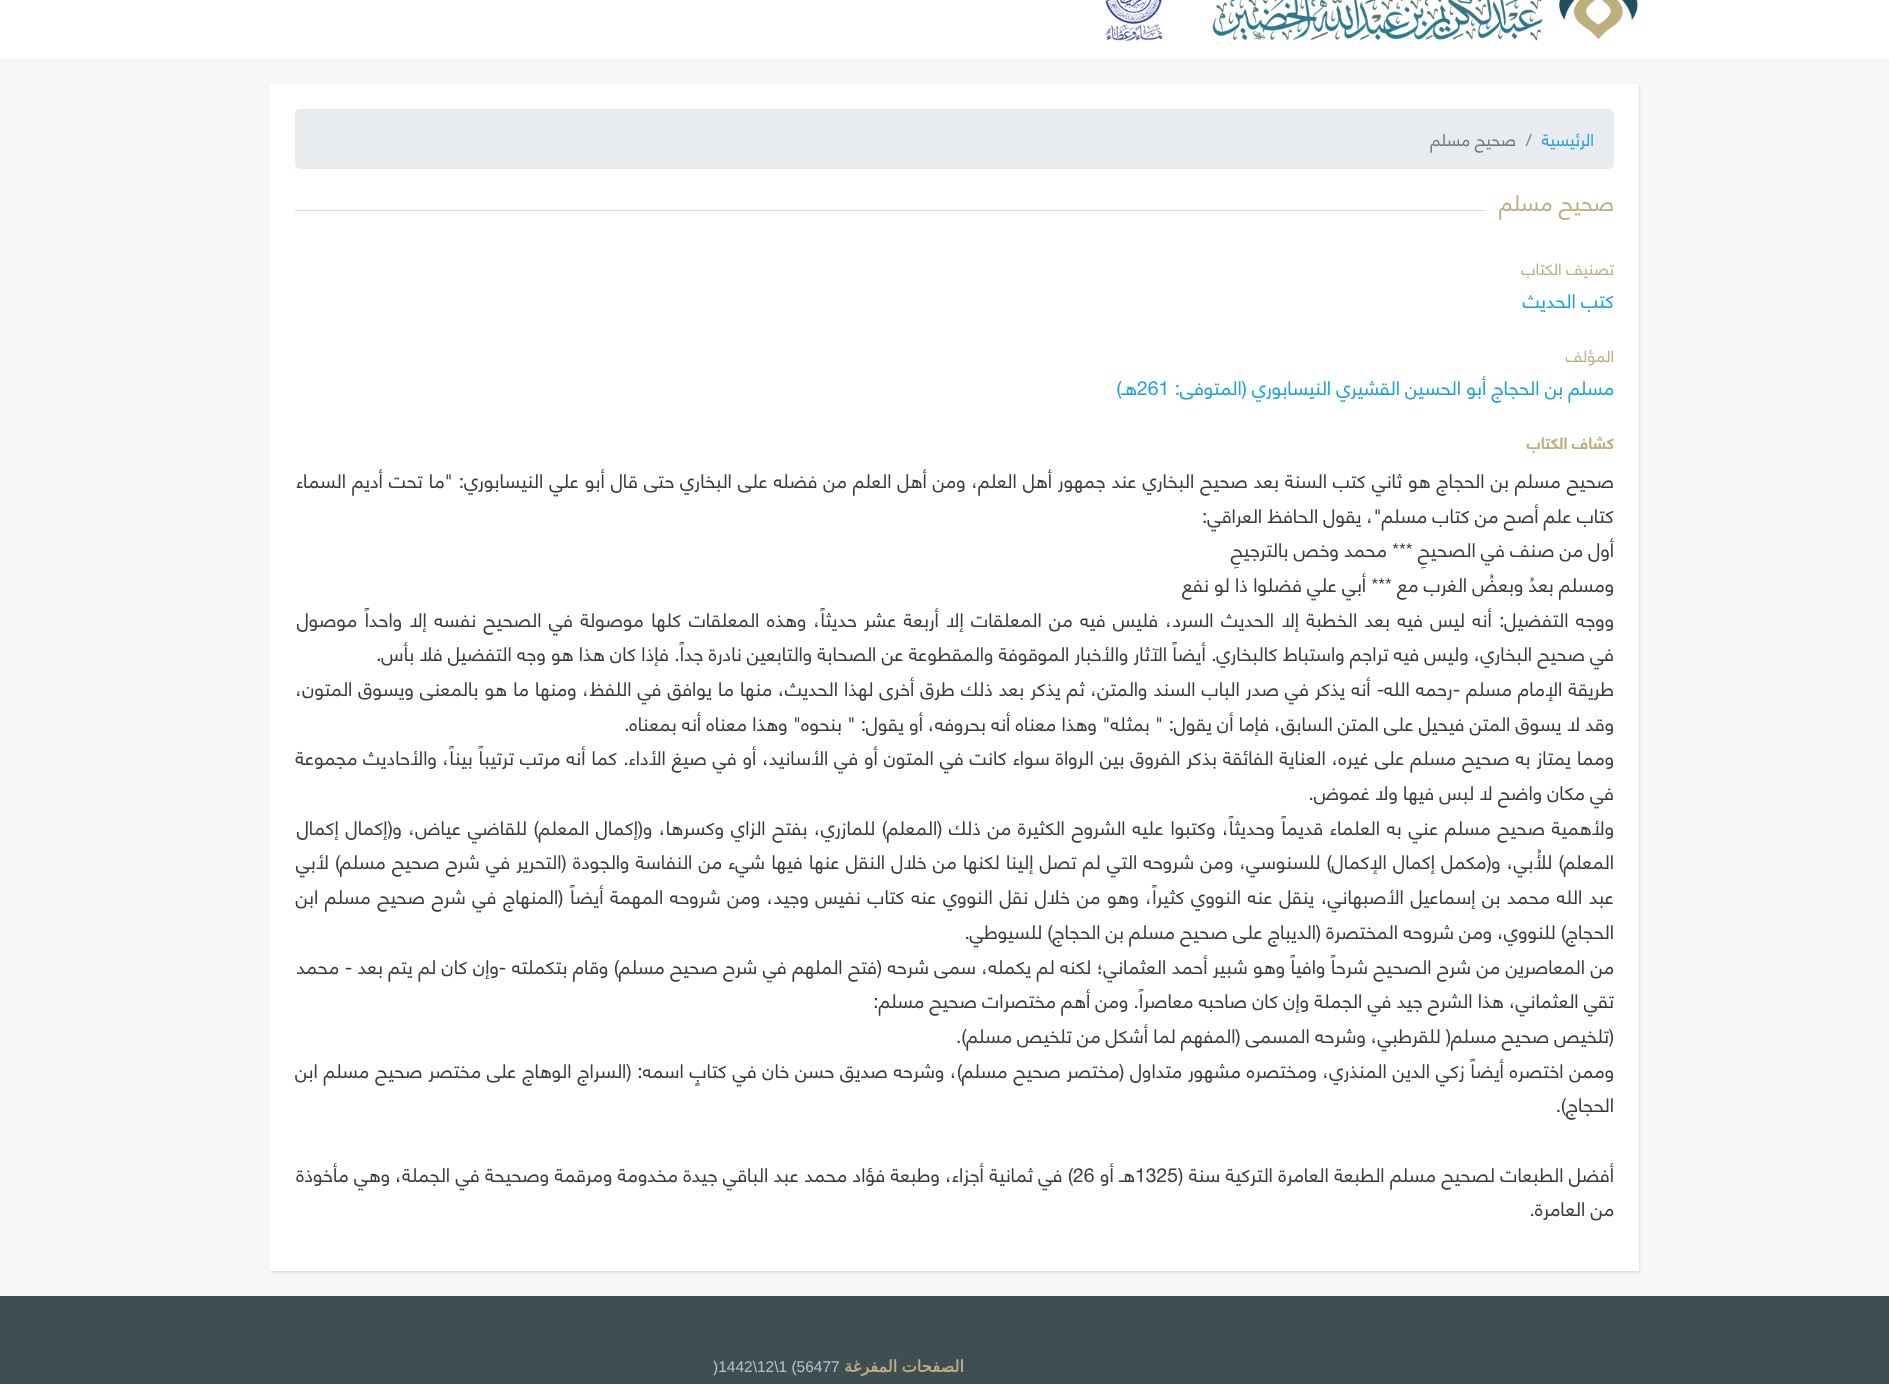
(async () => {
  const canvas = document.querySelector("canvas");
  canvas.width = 1889;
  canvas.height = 1384;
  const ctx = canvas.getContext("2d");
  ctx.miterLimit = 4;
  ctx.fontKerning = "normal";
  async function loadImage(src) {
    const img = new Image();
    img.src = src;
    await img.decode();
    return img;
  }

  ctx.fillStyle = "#f7f7f7";
  ctx.fillRect(0, 0, 1889, 1384);
  ctx.fillStyle = "#ffffff";
  ctx.fillRect(0, 0, 1889, 59);
  ctx.drawImage(await loadImage("img/1.png"), 1212, 0, 426, 41);
  ctx.drawImage(await loadImage("img/2.png"), 1105, 0, 58, 41);
  ctx.fillStyle = "rgba(0, 0, 0, 0.1)";
  ctx.filter = "blur(1px)";
  ctx.beginPath();
  ctx.rect(271, 85, 1369, 1188);
  ctx.fill();
  ctx.filter = "none";
  ctx.fillStyle = "#ffffff";
  ctx.fillRect(270, 84, 1369, 1187);
  ctx.fillStyle = "#e9ecef";
  ctx.beginPath();
  ctx.roundRect(295, 109, 1319, 60, 5);
  ctx.fill();
  ctx.fillStyle = "#dadada";
  ctx.fillRect(295, 210, 1191, 1);
  ctx.fillStyle = "#3e4e52";
  ctx.fillRect(0, 1296, 1889, 88);
  ctx.direction = "rtl";
  ctx.font = "16.75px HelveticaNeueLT";
  ctx.fillStyle = "#1ca2d6";
  ctx.fillText("الرئيسية", 1594, 146);
  ctx.direction = "ltr";
  ctx.fillStyle = "#6c757d";
  ctx.fillText("/", 1526, 146);
  ctx.direction = "rtl";
  ctx.fillText("صحيح مسلم", 1516, 146);
  ctx.font = "22.5px HelveticaNeueLT";
  ctx.fillStyle = "#bcaf7f";
  ctx.fillText("صحيح مسلم", 1614, 211);
  ctx.font = "16.25px HelveticaNeueLT";
  ctx.fillText("تصنيف الكتاب", 1614, 275);
  ctx.font = "19.28px HelveticaNeueLT";
  ctx.fillStyle = "#1ca2d6";
  ctx.fillText("كتب الحديث", 1614, 308);
  ctx.font = "16.25px HelveticaNeueLT";
  ctx.fillStyle = "#bcaf7f";
  ctx.fillText("المؤلف", 1614, 362);
  ctx.font = "19.28px HelveticaNeueLT";
  ctx.fillStyle = "#1ca2d6";
  ctx.fillText("مسلم بن الحجاج أبو الحسين القشيري النيسابوري (المتوفى:", 1614, 395);
  ctx.direction = "ltr";
  ctx.fillText("261", 1137, 395);
  ctx.direction = "rtl";
  ctx.fillText("هـ)", 1137, 395);
  ctx.font = "bold 16.25px HelveticaNeueLT";
  ctx.fillStyle = "#bcaf7f";
  ctx.fillText("كشاف الكتاب", 1614, 449);
  ctx.wordSpacing = "0.75px";
  ctx.font = "19.28px HelveticaNeueLT";
  ctx.fillStyle = "#3b3b3b";
  ctx.fillText("صحيح مسلم بن الحجاج هو ثاني كتب السنة بعد صحيح البخاري عند جمهور أهل العلم، ومن أهل العلم من فضله على البخاري حتى قال أبو علي النيسابوري: \"ما تحت أديم السماء", 1614, 488);
  ctx.wordSpacing = "0px";
  for (const [text, x, y] of [
    ["كتاب علم أصح من كتاب مسلم\"، يقول الحافظ العراقي:", 1614, 523],
    ["أول من صنف في الصحيحِ *** محمد وخص بالترجيحِ", 1614, 557],
    ["ومسلم بعدُ وبعضُ الغرب مع *** أبي علي فضلوا ذا لو نفع", 1614, 592],
  ]) {
    ctx.fillText(text, x, y);
  }
  ctx.wordSpacing = "2.2px";
  ctx.fillText("ووجه التفضيل: أنه ليس فيه بعد الخطبة إلا الحديث السرد، فليس فيه من المعلقات إلا أربعة عشر حديثاً، وهذه المعلقات كلها موصولة في الصحيح نفسه إلا واحداً موصول", 1614, 627);
  ctx.wordSpacing = "0px";
  ctx.fillText("في صحيح البخاري، وليس فيه تراجم واستباط كالبخاري. أيضاً الآثار والأخبار الموقوفة والمقطوعة عن الصحابة والتابعين نادرة جداً. فإذا كان هذا هو وجه التفضيل فلا بأس.", 1614, 661);
  ctx.wordSpacing = "0.85px";
  ctx.fillText("طريقة الإمام مسلم -رحمه الله- أنه يذكر في صدر الباب السند والمتن، ثم يذكر بعد ذلك طرق أخرى لهذا الحديث، منها ما يوافق في اللفظ، ومنها ما هو بالمعنى ويسوق المتون،", 1614, 696);
  ctx.wordSpacing = "0px";
  ctx.fillText("وقد لا يسوق المتن فيحيل على المتن السابق، فإما أن يقول: \" بمثله\" وهذا معناه أنه بحروفه، أو يقول: \" بنحوه\" وهذا معناه أنه بمعناه.", 1614, 731);
  ctx.wordSpacing = "0.75px";
  ctx.fillText("ومما يمتاز به صحيح مسلم على غيره، العناية الفائقة بذكر الفروق بين الرواة سواء كانت في المتون أو في الأسانيد، أو في صيغ الأداء. كما أنه مرتب ترتيباً بيناً، والأحاديث مجموعة", 1614, 765);
  ctx.wordSpacing = "0px";
  ctx.fillText("في مكان واضح لا لبس فيها ولا غموض.", 1614, 800);
  ctx.wordSpacing = "1.5px";
  ctx.fillText("ولأهمية صحيح مسلم عني به العلماء قديماً وحديثاً، وكتبوا عليه الشروح الكثيرة من ذلك (المعلم) للمازري، بفتح الزاي وكسرها، و(إكمال المعلم) للقاضي عياض، و(إكمال إكمال", 1614, 835);
  ctx.wordSpacing = "1.05px";
  ctx.fillText("المعلم) للأُبي، و(مكمل إكمال الإكمال) للسنوسي، ومن شروحه التي لم تصل إلينا لكنها من خلال النقل عنها فيها شيء من النفاسة والجودة (التحرير في شرح صحيح مسلم) لأبي", 1614, 869);
  ctx.wordSpacing = "1.5px";
  ctx.fillText("عبد الله محمد بن إسماعيل الأصبهاني، ينقل عنه النووي كثيراً، وهو من خلال نقل النووي عنه كتاب نفيس وجيد، ومن شروحه المهمة أيضاً (المنهاج في شرح صحيح مسلم ابن", 1614, 904);
  ctx.wordSpacing = "0px";
  ctx.fillText("الحجاج) للنووي، ومن شروحه المختصرة (الديباج على صحيح مسلم بن الحجاج) للسيوطي.", 1614, 939);
  ctx.wordSpacing = "0.3px";
  ctx.fillText("من المعاصرين من شرح الصحيح شرحاً وافياً وهو شبير أحمد العثماني؛ لكنه لم يكمله، سمى شرحه (فتح الملهم في شرح صحيح مسلم) وقام بتكملته -وإن كان لم يتم بعد - محمد", 1614, 974);
  ctx.wordSpacing = "0px";
  ctx.fillText("تقي العثماني، هذا الشرح جيد في الجملة وإن كان صاحبه معاصراً. ومن أهم مختصرات صحيح مسلم:", 1614, 1008);
  ctx.fillText("(تلخيص صحيح مسلم( للقرطبي، وشرحه المسمى (المفهم لما أشكل من تلخيص مسلم).", 1614, 1043);
  ctx.wordSpacing = "0.6px";
  ctx.fillText("وممن اختصره أيضاً زكي الدين المنذري، ومختصره مشهور متداول (مختصر صحيح مسلم)، وشرحه صديق حسن خان في كتابٍ اسمه: (السراج الوهاج على مختصر صحيح مسلم ابن", 1614, 1078);
  ctx.wordSpacing = "0px";
  ctx.fillText("الحجاج).", 1614, 1112);
  ctx.wordSpacing = "0.25px";
  ctx.fillText("أفضل الطبعات لصحيح مسلم الطبعة العامرة التركية سنة (", 1614, 1182);
  ctx.wordSpacing = "0px";
  ctx.direction = "ltr";
  ctx.fillText("1325", 1135, 1182);
  ctx.wordSpacing = "0.3px";
  ctx.direction = "rtl";
  ctx.fillText("هـ أو", 1135, 1182);
  ctx.wordSpacing = "0px";
  ctx.direction = "ltr";
  ctx.fillText("26", 1073, 1182);
  ctx.wordSpacing = "0.25px";
  ctx.direction = "rtl";
  ctx.fillText(") في ثمانية أجزاء، وطبعة فؤاد محمد عبد الباقي جيدة مخدومة ومرقمة وصحيحة في الجملة، وهي مأخوذة", 1073, 1182);
  ctx.wordSpacing = "0px";
  ctx.fillText("من العامرة.", 1614, 1216);
  ctx.wordSpacing = "-1px";
  ctx.font = "bold 16.25px DejaVu Sans";
  ctx.fillStyle = "#bcaf7f";
  ctx.fillText("الصفحات المفرغة", 964, 1372);
  ctx.wordSpacing = "0px";
  ctx.direction = "ltr";
  ctx.font = "15.5px Liberation Sans";
  ctx.fillStyle = "#bbc1c2";
  ctx.fillText(")1442\\12\\1 (56477", 713, 1372);
})();
